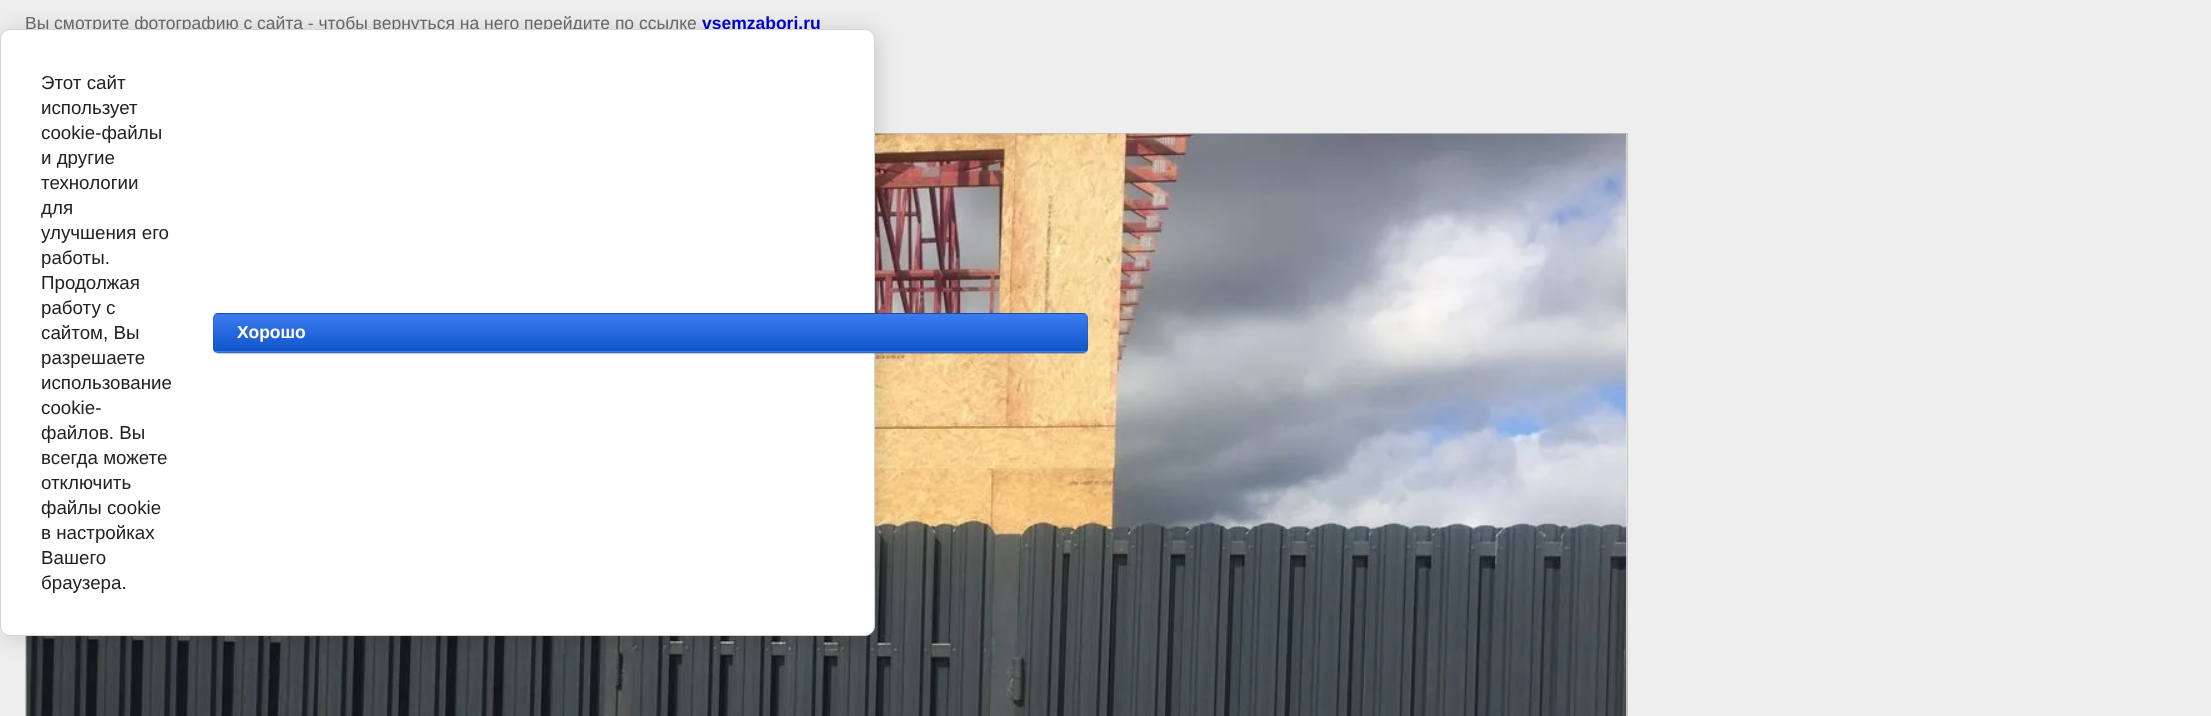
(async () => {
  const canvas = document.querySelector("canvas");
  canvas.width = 2211;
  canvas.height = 716;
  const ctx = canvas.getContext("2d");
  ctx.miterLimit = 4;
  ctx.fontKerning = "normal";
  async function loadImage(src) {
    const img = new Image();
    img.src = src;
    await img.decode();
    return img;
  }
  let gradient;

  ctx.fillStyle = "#eeeeee";
  ctx.fillRect(0, 0, 2211, 716);
  ctx.strokeStyle = "#c0c0c0";
  ctx.strokeRect(25.5, 133.5, 1602, 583);
  ctx.drawImage(await loadImage("img/1.png"), 26, 133, 1601, 583);
  ctx.fillStyle = "rgba(0, 0, 0, 0.14)";
  ctx.filter = "blur(11px)";
  ctx.beginPath();
  ctx.roundRect(3, 31, 875, 608, 10);
  ctx.fill();
  ctx.filter = "none";
  ctx.font = "17.5px Liberation Sans";
  ctx.fillStyle = "#666666";
  ctx.fillText("Вы смотрите фотографию с сайта - чтобы вернуться на него перейдите по ссылке", 25, 29);
  ctx.font = "bold 17.5px Liberation Sans";
  ctx.fillStyle = "#0000cc";
  ctx.fillText("vsemzabori.ru", 702, 29);
  ctx.fillStyle = "#ffffff";
  ctx.beginPath();
  ctx.roundRect(0.5, 29.5, 874, 606, 9.5);
  ctx.fill();
  ctx.strokeStyle = "#d6d6d6";
  ctx.stroke();
  ctx.font = "18.75px Liberation Sans";
  ctx.fillStyle = "#212121";
  for (const [text, x, y] of [
    ["Этот сайт", 41, 89],
    ["использует", 41, 114],
    ["cookie-файлы", 41, 139],
    ["и другие", 41, 164],
    ["технологии", 41, 189],
    ["для", 41, 214],
    ["улучшения его", 41, 239],
    ["работы.", 41, 264],
    ["Продолжая", 41, 289],
    ["работу с", 41, 314],
    ["сайтом, Вы", 41, 339],
    ["разрешаете", 41, 364],
    ["использование", 41, 389],
    ["cookie-", 41, 414],
    ["файлов. Вы", 41, 439],
    ["всегда можете", 41, 464],
    ["отключить", 41, 489],
    ["файлы cookie", 41, 514],
    ["в настройках", 41, 539],
    ["Вашего", 41, 564],
    ["браузера.", 41, 589],
  ]) {
    ctx.fillText(text, x, y);
  }
  ctx.fillStyle = "rgba(0, 0, 0, 0.2)";
  ctx.filter = "blur(0.5px)";
  ctx.beginPath();
  ctx.roundRect(213, 314, 875, 40, 5);
  ctx.fill();
  ctx.filter = "none";
  ctx.save();
  ctx.beginPath();
  ctx.roundRect(213, 313, 875, 40, 5);
  ctx.clip();
  gradient = ctx.createLinearGradient(650, 276, 650, 314);
  gradient.addColorStop(0, "#3b7cef");
  gradient.addColorStop(1, "#1155cc");
  ctx.fillStyle = gradient;
  ctx.fillRect(213, 313, 875, 1);
  gradient = ctx.createLinearGradient(650, 314, 650, 351);
  gradient.addColorStop(0, "#3b7cef");
  gradient.addColorStop(1, "#1155cc");
  ctx.fillStyle = gradient;
  ctx.fillRect(213, 314, 875, 37);
  gradient = ctx.createLinearGradient(650, 351, 650, 389);
  gradient.addColorStop(0, "#3b7cef");
  gradient.addColorStop(1, "#1155cc");
  ctx.fillStyle = gradient;
  ctx.fillRect(213, 351, 875, 2);
  ctx.restore();
  ctx.beginPath();
  ctx.roundRect(213.5, 313.5, 874, 39, 4.5);
  ctx.strokeStyle = "rgba(0, 0, 0, 0.1)";
  ctx.stroke();
  ctx.font = "bold 17.5px Liberation Sans";
  ctx.fillStyle = "#ffffff";
  ctx.fillText("Хорошо", 237, 338);
})();
